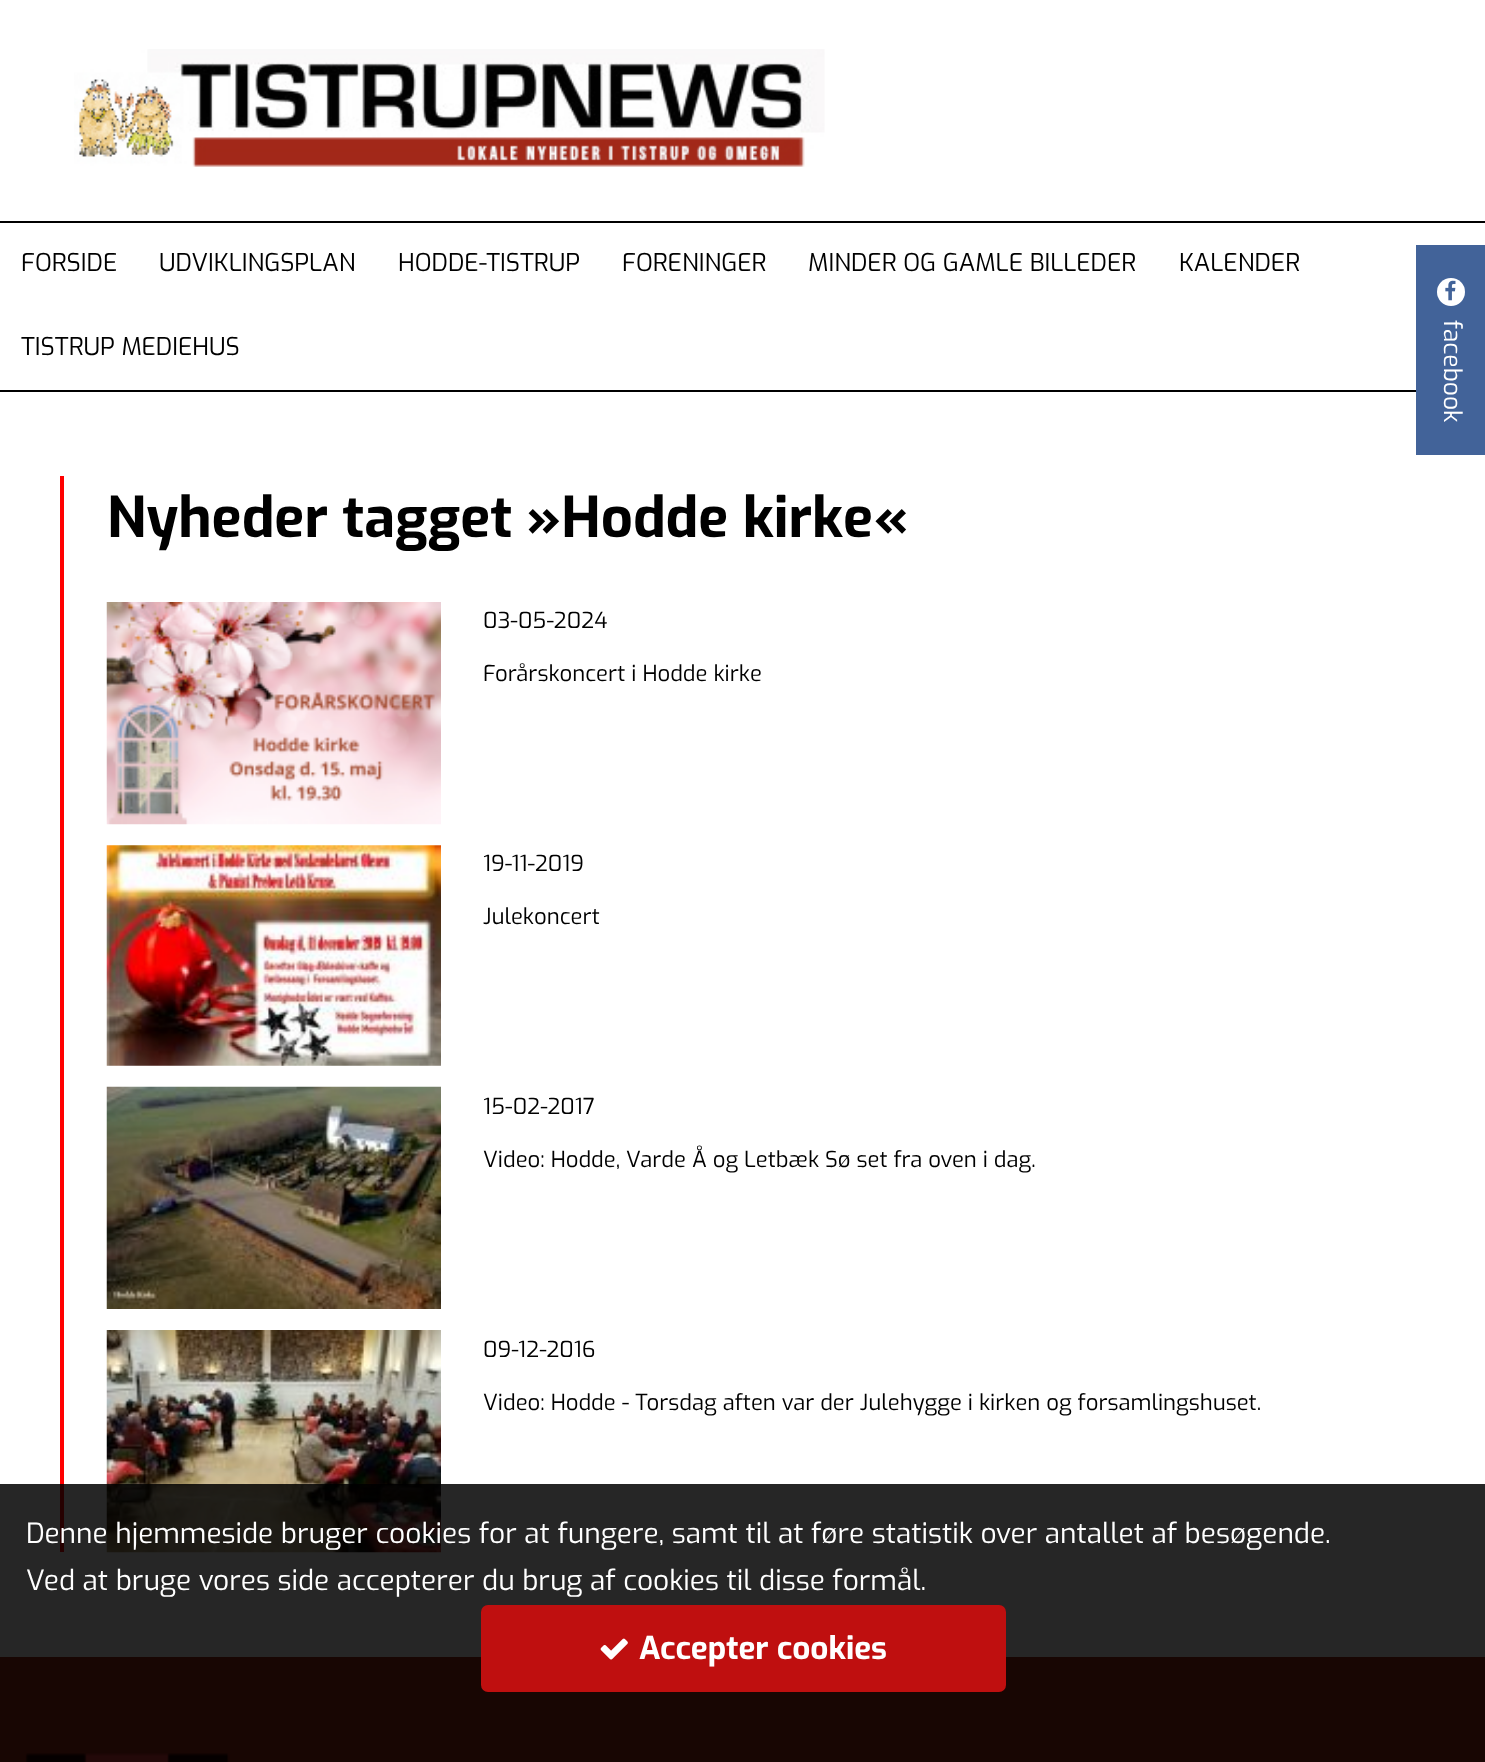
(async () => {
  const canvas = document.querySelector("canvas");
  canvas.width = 1485;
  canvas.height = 1762;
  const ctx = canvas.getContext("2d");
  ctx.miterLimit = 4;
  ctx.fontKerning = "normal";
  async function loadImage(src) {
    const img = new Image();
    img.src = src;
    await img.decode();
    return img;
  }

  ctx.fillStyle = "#ffffff";
  ctx.fillRect(0, 0, 1485, 1762);
  ctx.drawImage(await loadImage("img/1.png"), 74, 49, 751, 118);
  for (const [x, y, w, h, color] of [
    [0, 221, 1485, 2, "#000000"],
    [0, 390, 1416, 2, "#000000"],
    [1416, 245, 69, 210, "#426399"],
  ]) {
    ctx.fillStyle = color;
    ctx.fillRect(x, y, w, h);
  }
  ctx.fillStyle = "#ffffff";
  ctx.beginPath();
  ctx.arc(1451, 292, 14, 0, Math.PI * 2);
  ctx.fill();
  ctx.drawImage(await loadImage("img/2.png"), 1445, 280, 11, 21);
  ctx.fillStyle = "#ff0000";
  ctx.fillRect(60, 476, 4, 1076);
  ctx.drawImage(await loadImage("img/3.png"), 106, 602, 335, 223);
  ctx.drawImage(await loadImage("img/4.png"), 106, 845, 335, 221);
  ctx.drawImage(await loadImage("img/5.png"), 106, 1086, 335, 223);
  ctx.drawImage(await loadImage("img/6.png"), 106, 1330, 335, 223);
  ctx.fillStyle = "#a42919";
  ctx.fillRect(0, 1657, 1485, 105);
  ctx.drawImage(await loadImage("img/8.png"), 25, 1753, 205, 9);
  ctx.fillStyle = "rgba(0, 0, 0, 0.85)";
  ctx.fillRect(0, 1484, 1485, 278);
  ctx.fillStyle = "#bf0f0f";
  ctx.beginPath();
  ctx.roundRect(481, 1605, 525, 87, 7);
  ctx.fill();
  ctx.drawImage(await loadImage("img/7.png"), 600, 1638, 28, 22);
  ctx.font = "24.5px Exo";
  ctx.fillStyle = "#000000";
  for (const [text, x, y] of [
    ["FORSIDE", 21, 271],
    ["UDVIKLINGSPLAN", 159, 271],
    ["HODDE-TISTRUP", 398, 271],
    ["FORENINGER", 622, 271],
    ["MINDER OG GAMLE BILLEDER", 808, 271],
    ["KALENDER", 1179, 271],
    ["TISTRUP MEDIEHUS", 21, 355],
  ]) {
    ctx.fillText(text, x, y);
  }
  ctx.fillStyle = "#ffffff";
  ctx.save();
  ctx.translate(1444, 320);
  ctx.rotate(90 * Math.PI / 180);
  ctx.fillText("facebook", 0, 0);
  ctx.restore();
  ctx.font = "bold 56px Exo";
  ctx.fillStyle = "#000000";
  ctx.fillText("Nyheder tagget »Hodde kirke«", 107, 537);
  ctx.font = "22.05px Exo";
  for (const [text, x, y] of [
    ["03-05-2024", 483, 628],
    ["Forårskoncert i Hodde kirke", 483, 681],
    ["19-11-2019", 483, 871],
    ["Julekoncert", 483, 924],
    ["15-02-2017", 483, 1114],
    ["Video: Hodde, Varde Å og Letbæk Sø set fra oven i dag.", 483, 1167],
    ["09-12-2016", 483, 1357],
    ["Video: Hodde - Torsdag aften var der Julehygge i kirken og forsamlingshuset.", 483, 1410],
  ]) {
    ctx.fillText(text, x, y);
  }
  ctx.font = "28px Exo";
  ctx.fillStyle = "#ffffff";
  ctx.fillText("Denne hjemmeside bruger cookies for at fungere, samt til at føre statistik over antallet af besøgende.", 26, 1543);
  ctx.fillText("Ved at bruge vores side accepterer du brug af cookies til disse formål.", 26, 1590);
  ctx.font = "bold 31.5px Exo";
  ctx.fillText("Accepter cookies", 639, 1659);
})();
